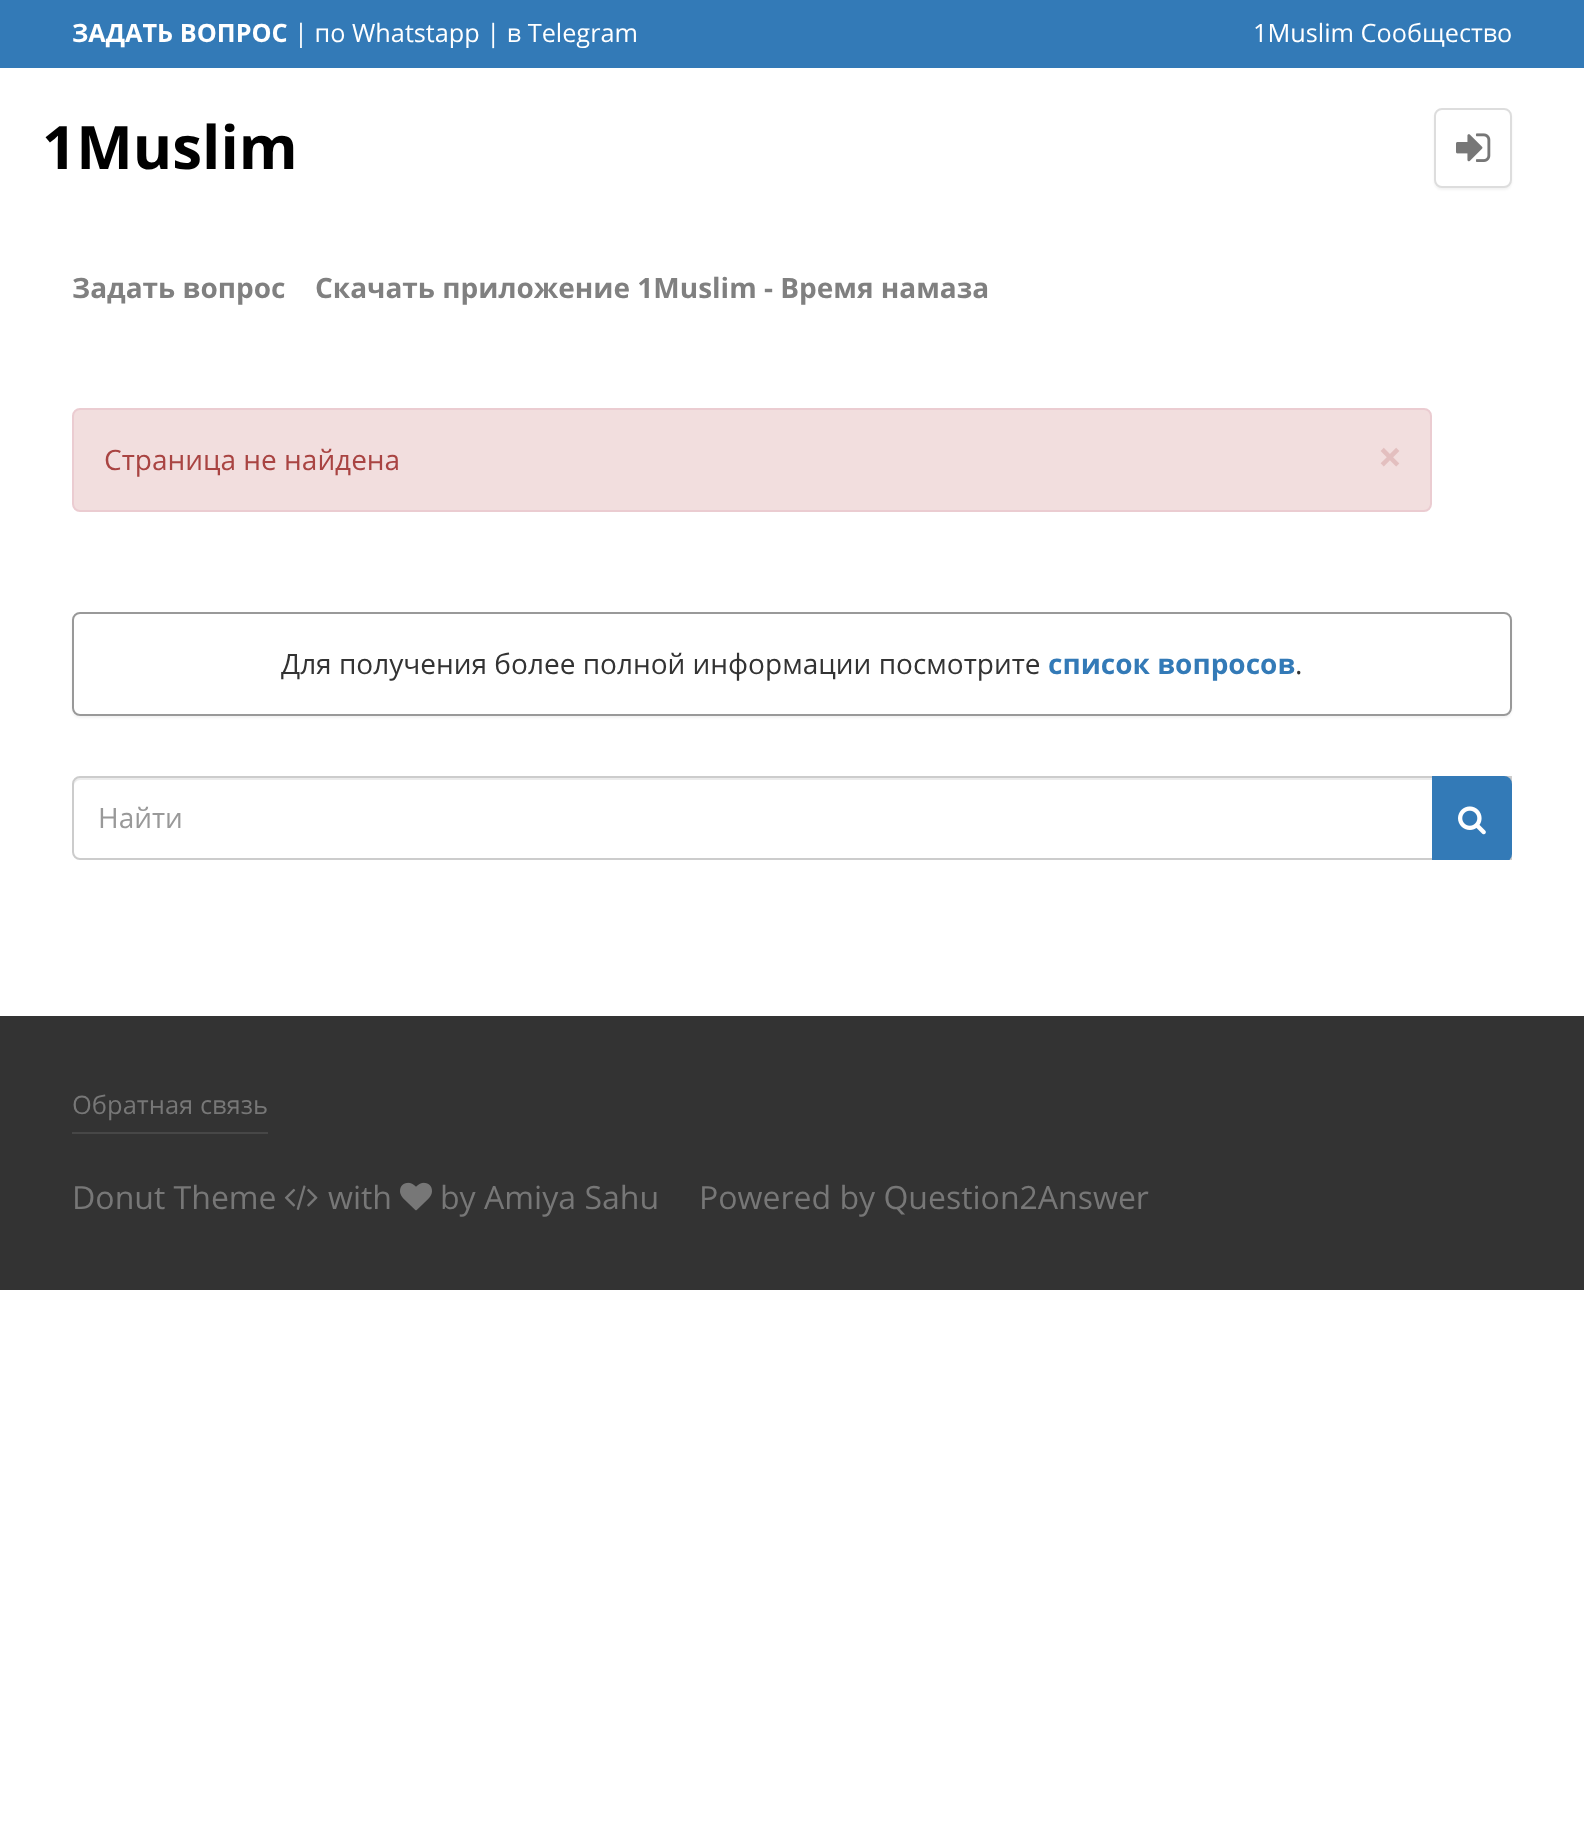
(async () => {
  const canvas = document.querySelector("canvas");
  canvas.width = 1584;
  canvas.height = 1823;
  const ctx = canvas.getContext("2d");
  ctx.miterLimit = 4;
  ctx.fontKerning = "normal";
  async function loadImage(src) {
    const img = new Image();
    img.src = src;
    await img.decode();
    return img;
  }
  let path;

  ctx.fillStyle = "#ffffff";
  ctx.fillRect(0, 0, 1584, 1823);
  ctx.fillStyle = "#337ab7";
  ctx.fillRect(0, 0, 1584, 68);
  ctx.fillStyle = "rgba(0, 0, 0, 0.05)";
  ctx.filter = "blur(1px)";
  ctx.beginPath();
  ctx.roundRect(1434, 110, 78, 80, 8);
  ctx.fill();
  ctx.filter = "none";
  ctx.fillStyle = "#ffffff";
  ctx.beginPath();
  ctx.roundRect(1435, 109, 76, 78, 7);
  ctx.fill();
  ctx.strokeStyle = "#dddddd";
  ctx.lineWidth = 2;
  ctx.stroke();
  ctx.drawImage(await loadImage("img/1.png"), 1456, 133, 35, 29);
  ctx.fillStyle = "#f2dede";
  ctx.beginPath();
  ctx.roundRect(73, 409, 1358, 102, 7);
  ctx.fill();
  ctx.strokeStyle = "#ebccd1";
  ctx.stroke();
  ctx.save();
  path = new Path2D("M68 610H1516V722H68ZM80 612H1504C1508.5 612 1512 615.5 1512 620V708C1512 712.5 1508.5 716 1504 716H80C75.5 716 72 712.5 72 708V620C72 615.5 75.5 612 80 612Z");
  ctx.clip(path, "evenodd");
  ctx.fillStyle = "rgba(0, 0, 0, 0.05)";
  ctx.filter = "blur(1px)";
  ctx.beginPath();
  ctx.roundRect(72, 614, 1440, 104, 8);
  ctx.fill();
  ctx.filter = "none";
  ctx.restore();
  ctx.beginPath();
  ctx.roundRect(73, 613, 1438, 102, 7);
  ctx.strokeStyle = "#999999";
  ctx.stroke();
  ctx.fillStyle = "#ececec";
  path = new Path2D("M80 780H1510V778H80C75 778 74 782 74 786C74 783 77 780 80 780Z");
  ctx.fill(path);
  ctx.beginPath();
  ctx.roundRect(73, 777, 1438, 82, [7, 0, 0, 7]);
  ctx.strokeStyle = "#cccccc";
  ctx.stroke();
  ctx.save();
  ctx.beginPath();
  ctx.rect(72, 776, 1440, 84);
  ctx.clip();
  ctx.fillStyle = "#337ab7";
  ctx.beginPath();
  ctx.roundRect(1432, 776, 80, 86, [0, 8, 8, 0]);
  ctx.fill();
  ctx.restore();
  ctx.drawImage(await loadImage("img/2.png"), 1458, 806, 28, 29);
  ctx.fillStyle = "#333333";
  ctx.fillRect(0, 1016, 1584, 274);
  ctx.fillStyle = "#474747";
  ctx.fillRect(72, 1132, 196, 2);
  ctx.drawImage(await loadImage("img/3.png"), 284, 1185, 34, 25);
  ctx.drawImage(await loadImage("img/4.png"), 400, 1182, 32, 29);
  ctx.font = "bold 25.25px Open Sans";
  ctx.fillStyle = "#ffffff";
  ctx.fillText("ЗАДАТЬ ВОПРОС", 72, 42);
  ctx.font = "25.25px Open Sans";
  ctx.fillText("| по Whatstapp | в Telegram", 294, 42);
  ctx.fillText("1Muslim Сообщество", 1253, 42);
  ctx.font = "bold 60px Open Sans";
  ctx.fillStyle = "#000000";
  ctx.fillText("1Muslim", 42, 169);
  ctx.font = "bold 28px Open Sans";
  ctx.fillStyle = "#808080";
  ctx.fillText("Задать вопрос", 72, 298);
  ctx.fillText("Скачать приложение 1Muslim - Время намаза", 315, 298);
  ctx.font = "28px Open Sans";
  ctx.fillStyle = "#a94442";
  ctx.fillText("Страница не найдена", 104, 470);
  ctx.font = "bold 42px Open Sans";
  ctx.fillStyle = "#e3bfbf";
  ctx.fillText("×", 1378, 472);
  ctx.font = "28px Open Sans";
  ctx.fillStyle = "#333333";
  ctx.fillText("Для получения более полной информации посмотрите", 281, 674);
  ctx.font = "bold 28px Open Sans";
  ctx.fillStyle = "#337ab7";
  ctx.fillText("список вопросов", 1048, 674);
  ctx.font = "28px Open Sans";
  ctx.fillStyle = "#333333";
  ctx.fillText(".", 1295, 674);
  ctx.fillStyle = "#999999";
  ctx.fillText("Найти", 98, 828);
  ctx.font = "25.5px Open Sans";
  ctx.fillStyle = "#777777";
  ctx.fillText("Обратная связь", 72, 1114);
  ctx.font = "32px Open Sans";
  for (const [text, x, y] of [
    ["Donut Theme", 72, 1209],
    ["with", 328, 1209],
    ["by Amiya Sahu", 440, 1209],
    ["Powered by Question2Answer", 699, 1209],
  ]) {
    ctx.fillText(text, x, y);
  }
})();
